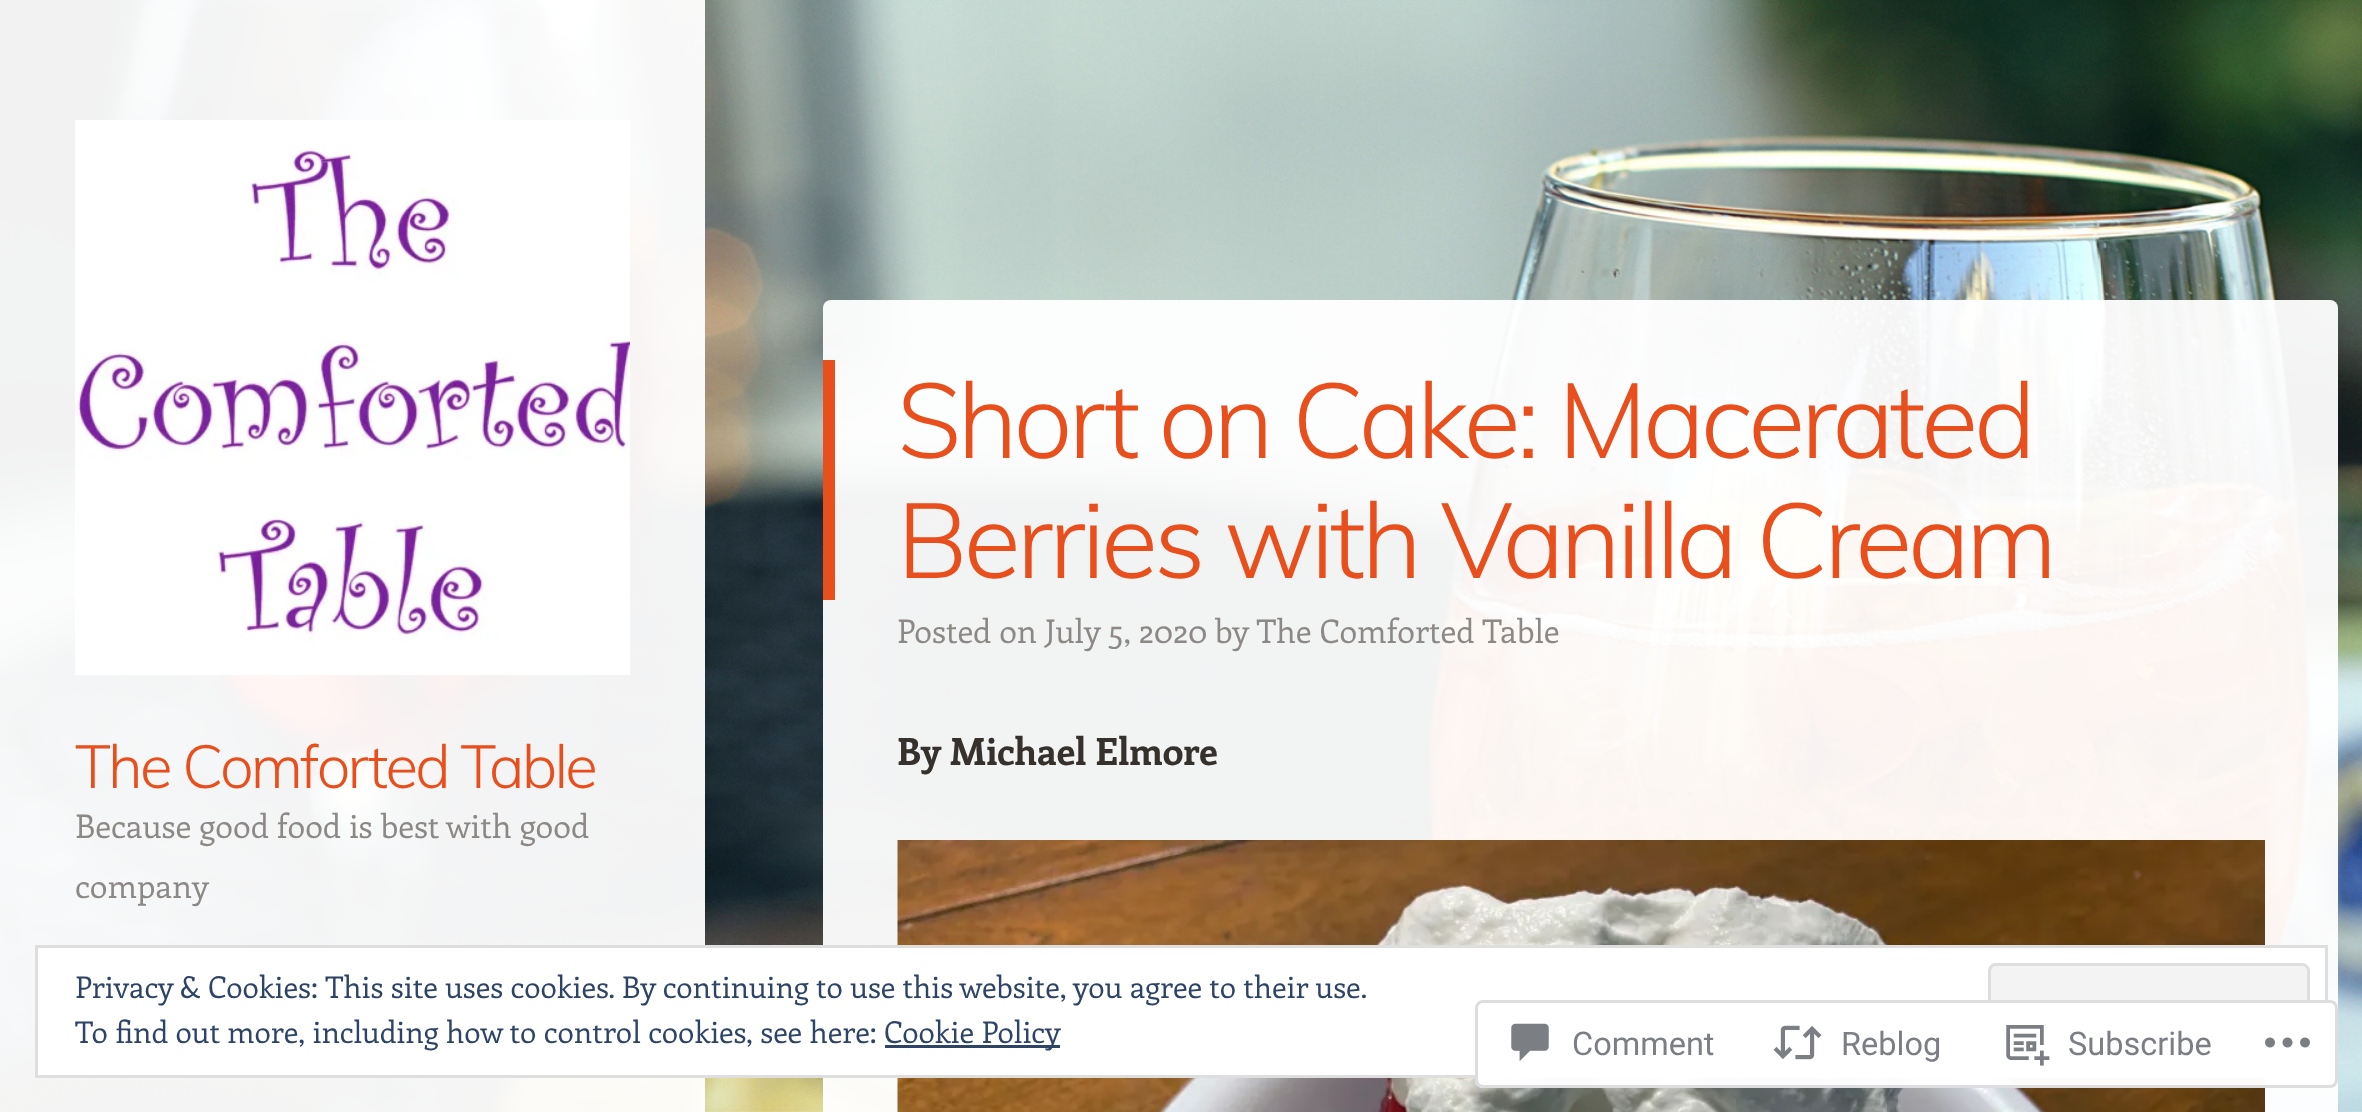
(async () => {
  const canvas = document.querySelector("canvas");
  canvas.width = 2362;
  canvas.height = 1112;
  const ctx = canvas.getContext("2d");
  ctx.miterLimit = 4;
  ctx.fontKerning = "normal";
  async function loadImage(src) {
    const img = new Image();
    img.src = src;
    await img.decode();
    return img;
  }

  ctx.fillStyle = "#ffffff";
  ctx.fillRect(0, 0, 2362, 1112);
  ctx.drawImage(await loadImage("img/1.png"), 0, 0, 2362, 1112);
  ctx.fillStyle = "rgba(255, 255, 255, 0.95)";
  ctx.fillRect(0, 0, 705, 1112);
  ctx.beginPath();
  ctx.roundRect(823, 300, 1515, 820, 8);
  ctx.fill();
  ctx.fillStyle = "#e94f1d";
  ctx.fillRect(823, 360, 12, 240);
  ctx.drawImage(await loadImage("img/2.png"), 897, 840, 1368, 272);
  ctx.drawImage(await loadImage("img/3.png"), 75, 120, 555, 555);
  ctx.fillStyle = "#ffffff";
  ctx.beginPath();
  ctx.rect(36.5, 946.5, 2290, 130);
  ctx.fill();
  ctx.strokeStyle = "#dedede";
  ctx.lineWidth = 3;
  ctx.stroke();
  ctx.fillStyle = "#f3f3f3";
  ctx.beginPath();
  ctx.roundRect(1989.5, 964.5, 319, 94, 6.5);
  ctx.fill();
  ctx.stroke();
  ctx.fillStyle = "#2e4467";
  ctx.fillRect(885, 1045, 175, 3);
  ctx.fillStyle = "rgba(255, 255, 255, 0.98)";
  ctx.beginPath();
  ctx.roundRect(1475, 1000, 863, 88, 8);
  ctx.fill();
  ctx.beginPath();
  ctx.roundRect(1476.5, 1001.5, 860, 85, 6.5);
  ctx.strokeStyle = "rgba(220, 220, 222, 0.98)";
  ctx.stroke();
  ctx.drawImage(await loadImage("img/4.png"), 1511, 1023, 38, 39);
  ctx.drawImage(await loadImage("img/5.png"), 1773, 1025, 49, 35);
  ctx.drawImage(await loadImage("img/6.png"), 2006, 1025, 44, 41);
  ctx.drawImage(await loadImage("img/7.png"), 2265, 1037, 45, 11);
  ctx.letterSpacing = "-4.2px";
  ctx.font = "300 105px Muli";
  ctx.fillStyle = "#e94f1d";
  ctx.fillText("Short on Cake: Macerated", 897, 458);
  ctx.fillText("Berries with Vanilla Cream", 897, 578);
  ctx.letterSpacing = "0px";
  ctx.font = "32.5px Enriqueta";
  ctx.fillStyle = "#8c8885";
  ctx.fillText("Posted on July 5, 2020 by The Comforted Table", 897, 643);
  ctx.font = "bold 37.5px Enriqueta";
  ctx.fillStyle = "#36312d";
  ctx.fillText("By Michael Elmore", 897, 765);
  ctx.letterSpacing = "-2.75px";
  ctx.font = "300 60px Muli";
  ctx.fillStyle = "#e94f1d";
  ctx.fillText("The Comforted Table", 75, 788);
  ctx.letterSpacing = "0px";
  ctx.font = "32.5px Enriqueta";
  ctx.fillStyle = "#8c8885";
  ctx.fillText("Because good food is best with good", 75, 838);
  ctx.fillText("company", 75, 898);
  ctx.font = "30px Enriqueta";
  ctx.fillStyle = "#2e4467";
  for (const [text, x, y] of [
    ["Privacy & Cookies: This site uses cookies. By continuing to use this website, you agree to their use.", 75, 998],
    ["To find out more, including how to control cookies, see here:", 75, 1043],
    ["Cookie Policy", 884, 1043],
  ]) {
    ctx.fillText(text, x, y);
  }
  ctx.font = "32.5px Roboto";
  ctx.fillStyle = "#7b7f85";
  for (const [text, x, y] of [
    ["Comment", 1572, 1055],
    ["Reblog", 1841, 1055],
    ["Subscribe", 2068, 1055],
  ]) {
    ctx.fillText(text, x, y);
  }
})();
